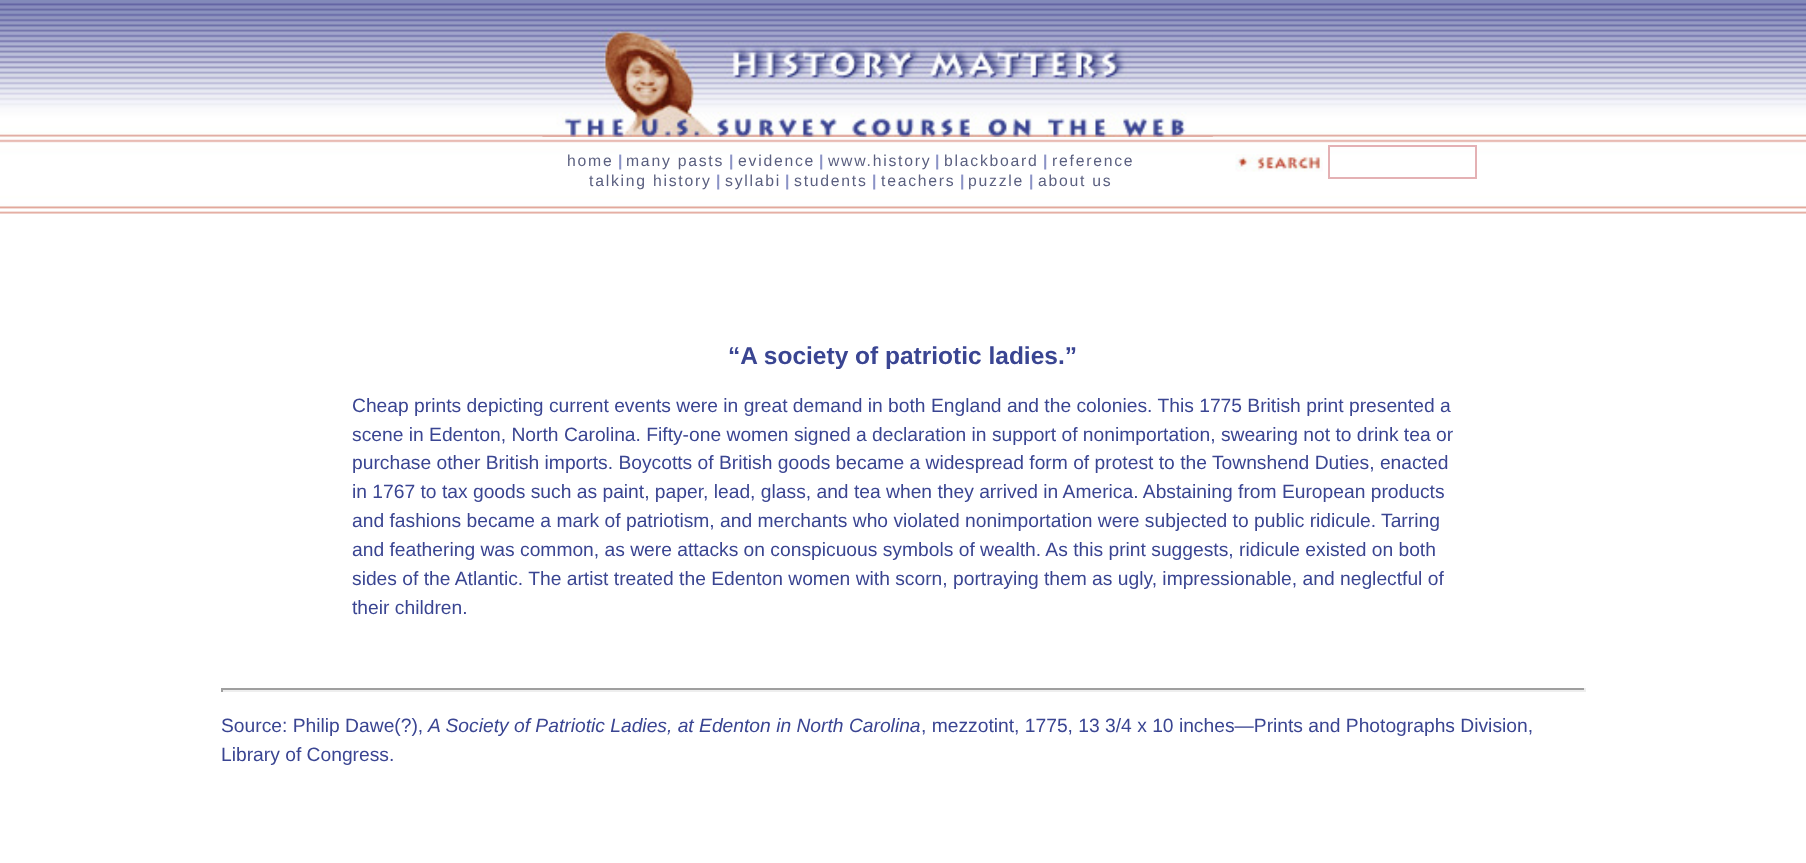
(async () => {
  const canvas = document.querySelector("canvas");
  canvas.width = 1806;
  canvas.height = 863;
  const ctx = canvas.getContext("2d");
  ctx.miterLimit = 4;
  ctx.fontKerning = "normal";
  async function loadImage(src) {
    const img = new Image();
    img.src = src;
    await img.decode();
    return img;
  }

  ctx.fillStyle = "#ffffff";
  ctx.fillRect(0, 0, 1806, 863);
  ctx.drawImage(await loadImage("img/1.png"), 0, 0, 1806, 214);
  ctx.drawImage(await loadImage("img/2.png"), 542, 28, 671, 109);
  ctx.drawImage(await loadImage("img/3.png"), 542, 136, 671, 1);
  ctx.drawImage(await loadImage("img/4.png"), 1235, 154, 88, 18);
  ctx.fillRect(1330, 149, 145, 1);
  ctx.strokeStyle = "#e4b1b4";
  ctx.lineWidth = 2;
  ctx.strokeRect(1329, 146, 147, 32);
  for (const [x, y, w, h, color] of [
    [221, 688, 1365, 2, "#9f9f9f"],
    [1584, 688, 2, 4, "#eeeeee"],
    [221, 690, 1365, 2, "#eeeeee"],
    [221, 688, 2, 4, "#9f9f9f"],
  ]) {
    ctx.fillStyle = color;
    ctx.fillRect(x, y, w, h);
  }
  ctx.letterSpacing = "1.75px";
  ctx.font = "15.75px Liberation Sans";
  ctx.fillStyle = "#5b6080";
  ctx.fillText("home", 567, 166);
  ctx.letterSpacing = "0px";
  ctx.font = "bold 15.75px Liberation Sans";
  ctx.fillStyle = "#8a92c5";
  ctx.fillText("|", 618, 166);
  ctx.letterSpacing = "1.75px";
  ctx.font = "15.75px Liberation Sans";
  ctx.fillStyle = "#5b6080";
  ctx.fillText("many pasts", 626, 166);
  ctx.letterSpacing = "0px";
  ctx.font = "bold 15.75px Liberation Sans";
  ctx.fillStyle = "#8a92c5";
  ctx.fillText("|", 729, 166);
  ctx.letterSpacing = "1.75px";
  ctx.font = "15.75px Liberation Sans";
  ctx.fillStyle = "#5b6080";
  ctx.fillText("evidence", 738, 166);
  ctx.letterSpacing = "0px";
  ctx.font = "bold 15.75px Liberation Sans";
  ctx.fillStyle = "#8a92c5";
  ctx.fillText("|", 819, 166);
  ctx.letterSpacing = "1.75px";
  ctx.font = "15.75px Liberation Sans";
  ctx.fillStyle = "#5b6080";
  ctx.fillText("www.history", 828, 166);
  ctx.letterSpacing = "0px";
  ctx.font = "bold 15.75px Liberation Sans";
  ctx.fillStyle = "#8a92c5";
  ctx.fillText("|", 935, 166);
  ctx.letterSpacing = "1.75px";
  ctx.font = "15.75px Liberation Sans";
  ctx.fillStyle = "#5b6080";
  ctx.fillText("blackboard", 944, 166);
  ctx.letterSpacing = "0px";
  ctx.font = "bold 15.75px Liberation Sans";
  ctx.fillStyle = "#8a92c5";
  ctx.fillText("|", 1043, 166);
  ctx.letterSpacing = "1.75px";
  ctx.font = "15.75px Liberation Sans";
  ctx.fillStyle = "#5b6080";
  ctx.fillText("reference", 1052, 166);
  ctx.fillText("talking history", 589, 186);
  ctx.letterSpacing = "0px";
  ctx.font = "bold 15.75px Liberation Sans";
  ctx.fillStyle = "#8a92c5";
  ctx.fillText("|", 716, 186);
  ctx.letterSpacing = "1.75px";
  ctx.font = "15.75px Liberation Sans";
  ctx.fillStyle = "#5b6080";
  ctx.fillText("syllabi", 725, 186);
  ctx.letterSpacing = "0px";
  ctx.font = "bold 15.75px Liberation Sans";
  ctx.fillStyle = "#8a92c5";
  ctx.fillText("|", 785, 186);
  ctx.letterSpacing = "1.75px";
  ctx.font = "15.75px Liberation Sans";
  ctx.fillStyle = "#5b6080";
  ctx.fillText("students", 794, 186);
  ctx.letterSpacing = "0px";
  ctx.font = "bold 15.75px Liberation Sans";
  ctx.fillStyle = "#8a92c5";
  ctx.fillText("|", 872, 186);
  ctx.letterSpacing = "1.75px";
  ctx.font = "15.75px Liberation Sans";
  ctx.fillStyle = "#5b6080";
  ctx.fillText("teachers", 881, 186);
  ctx.letterSpacing = "0px";
  ctx.font = "bold 15.75px Liberation Sans";
  ctx.fillStyle = "#8a92c5";
  ctx.fillText("|", 960, 186);
  ctx.letterSpacing = "1.75px";
  ctx.font = "15.75px Liberation Sans";
  ctx.fillStyle = "#5b6080";
  ctx.fillText("puzzle", 968, 186);
  ctx.letterSpacing = "0px";
  ctx.font = "bold 15.75px Liberation Sans";
  ctx.fillStyle = "#8a92c5";
  ctx.fillText("|", 1029, 186);
  ctx.letterSpacing = "1.75px";
  ctx.font = "15.75px Liberation Sans";
  ctx.fillStyle = "#5b6080";
  ctx.fillText("about us", 1038, 186);
  ctx.letterSpacing = "0px";
  ctx.font = "bold 24.5px Liberation Sans";
  ctx.fillStyle = "#3a4592";
  ctx.fillText("“A society of patriotic ladies.”", 728, 364);
  ctx.font = "19.25px Liberation Sans";
  for (const [text, x, y] of [
    ["Cheap prints depicting current events were in great demand in both England and the colonies. This 1775 British print presented a", 352, 412],
    ["scene in Edenton, North Carolina. Fifty-one women signed a declaration in support of nonimportation, swearing not to drink tea or", 352, 441],
    ["purchase other British imports. Boycotts of British goods became a widespread form of protest to the Townshend Duties, enacted", 352, 469],
    ["in 1767 to tax goods such as paint, paper, lead, glass, and tea when they arrived in America. Abstaining from European products", 352, 498],
    ["and fashions became a mark of patriotism, and merchants who violated nonimportation were subjected to public ridicule. Tarring", 352, 527],
    ["and feathering was common, as were attacks on conspicuous symbols of wealth. As this print suggests, ridicule existed on both", 352, 556],
    ["sides of the Atlantic. The artist treated the Edenton women with scorn, portraying them as ugly, impressionable, and neglectful of", 352, 585],
    ["their children.", 352, 614],
    ["Source: Philip Dawe(?),", 221, 732],
  ]) {
    ctx.fillText(text, x, y);
  }
  ctx.font = "italic 19.25px Liberation Sans";
  ctx.fillText("A Society of Patriotic Ladies, at Edenton in North Carolina", 428, 732);
  ctx.font = "19.25px Liberation Sans";
  ctx.fillText(", mezzotint, 1775, 13 3/4 x 10 inches—Prints and Photographs Division,", 921, 732);
  ctx.fillText("Library of Congress.", 221, 761);
})();
